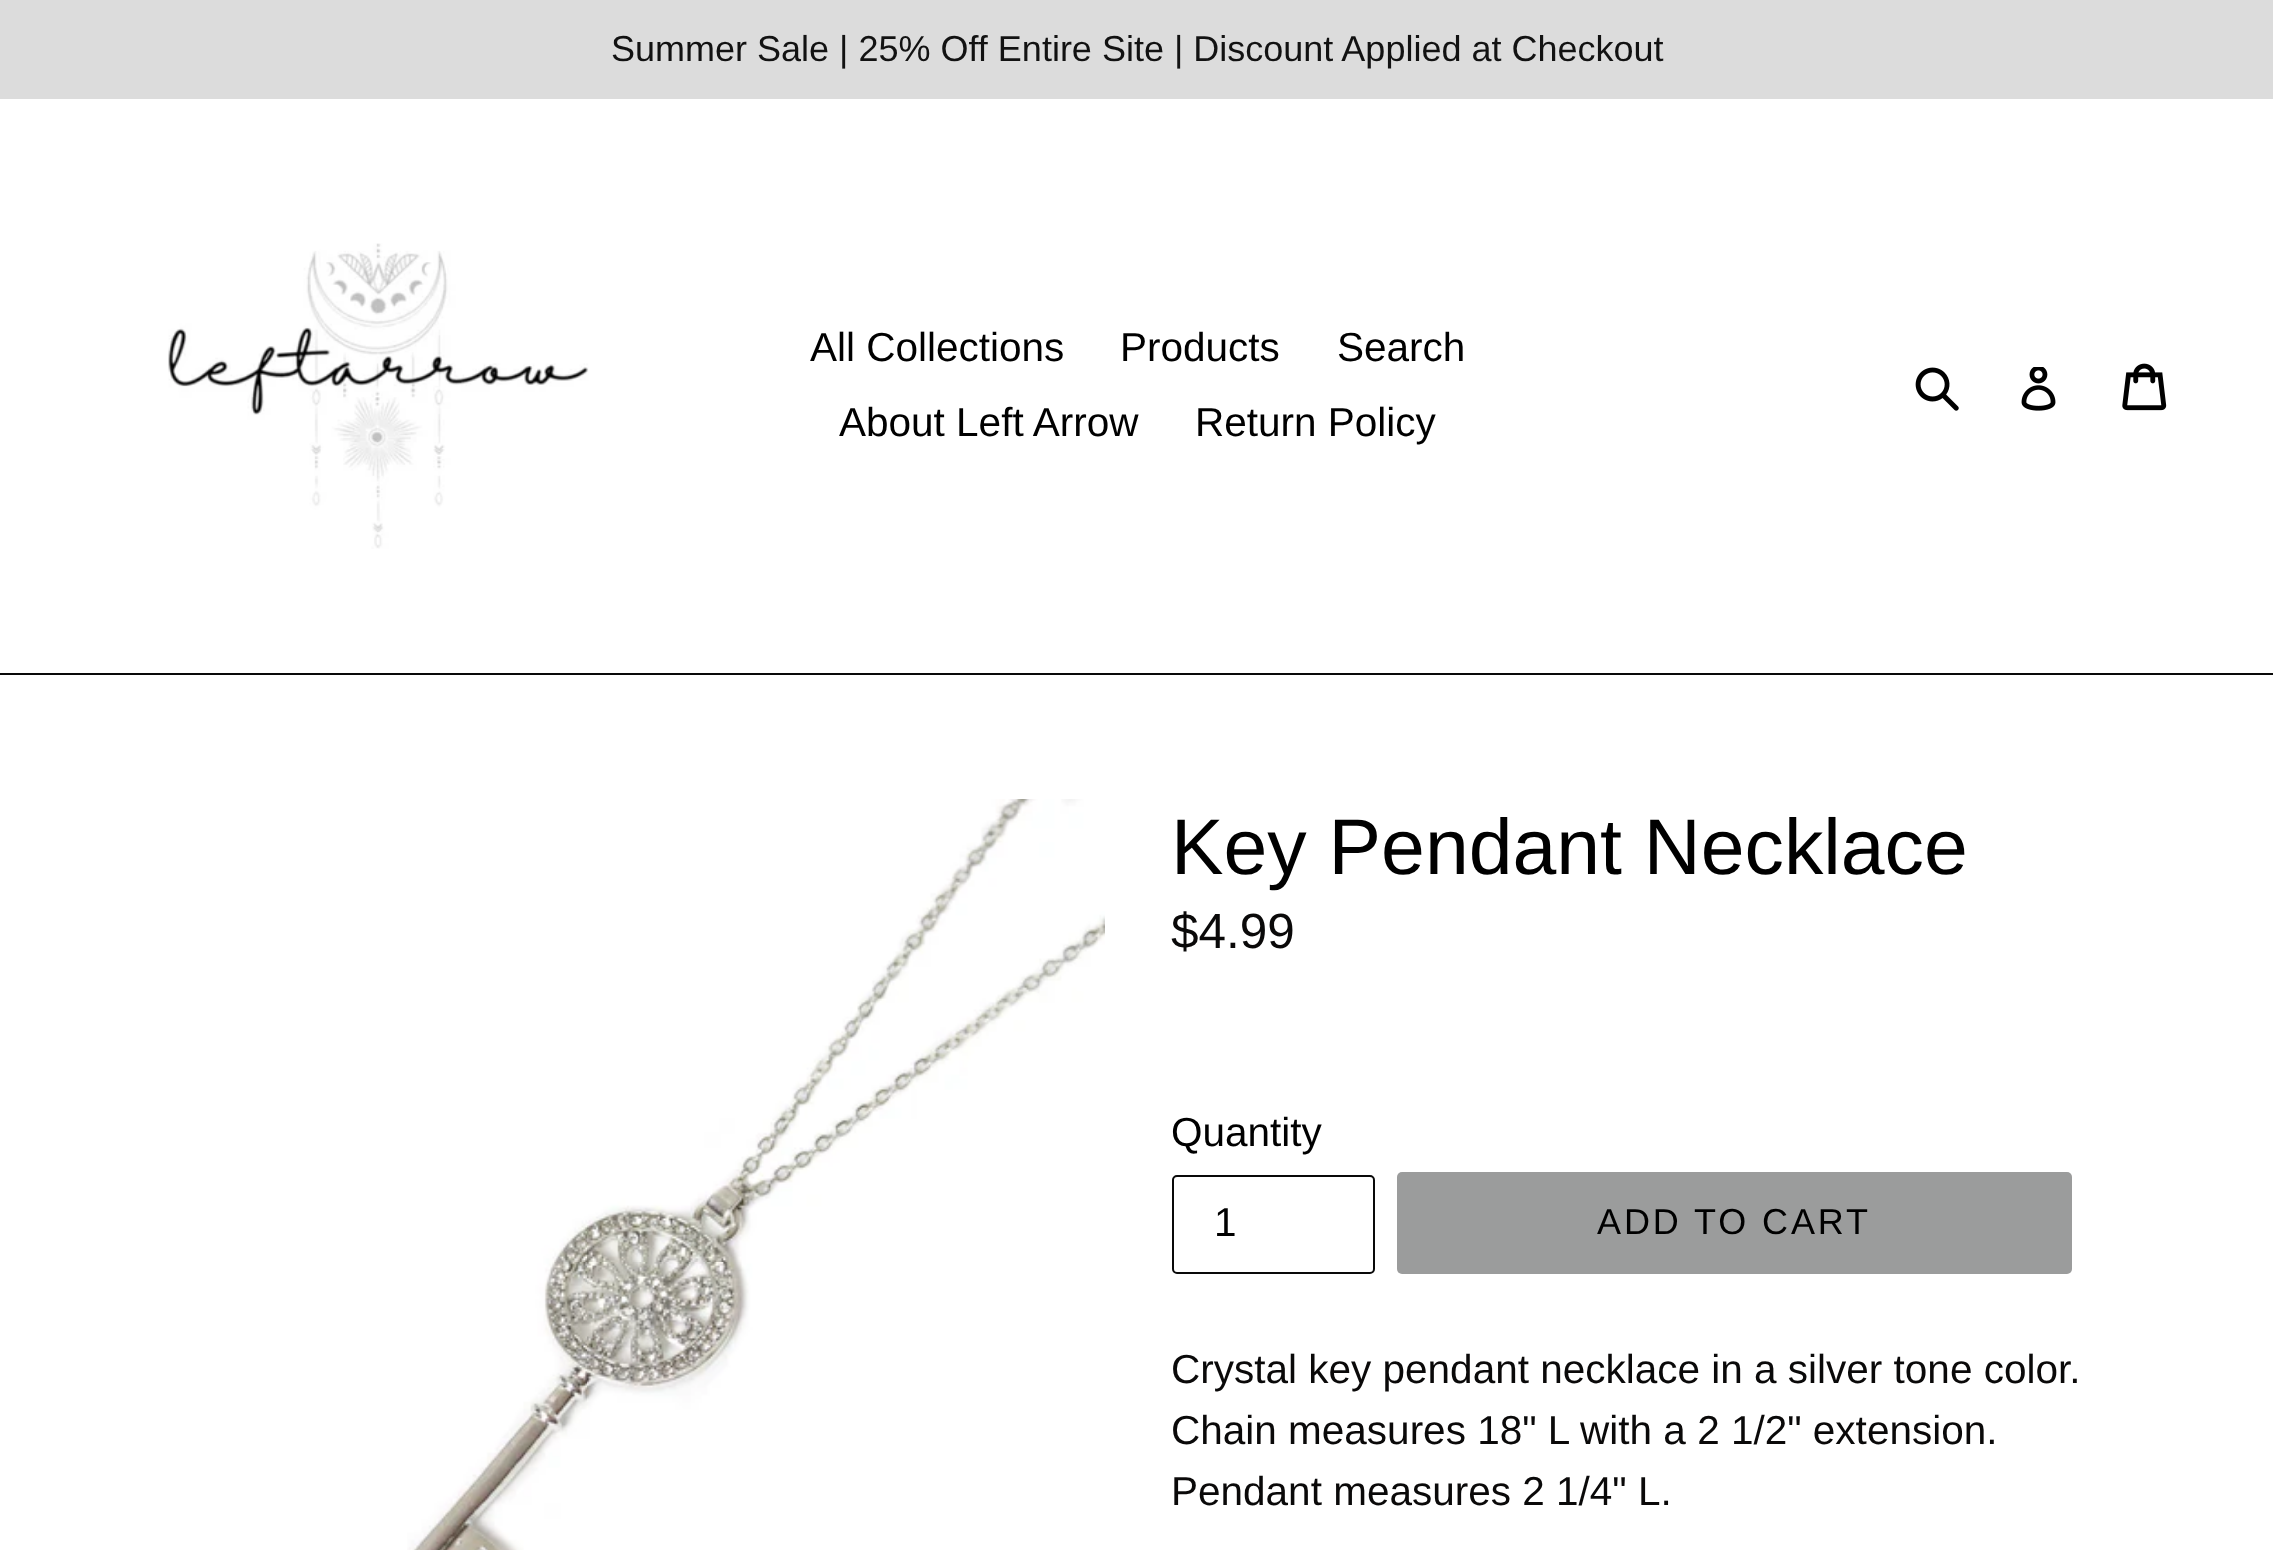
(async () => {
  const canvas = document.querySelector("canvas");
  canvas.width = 2273;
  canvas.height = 1550;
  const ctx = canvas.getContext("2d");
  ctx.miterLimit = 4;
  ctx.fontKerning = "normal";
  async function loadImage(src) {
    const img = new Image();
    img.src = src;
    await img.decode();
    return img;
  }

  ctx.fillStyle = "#ffffff";
  ctx.fillRect(0, 0, 2273, 1550);
  ctx.fillStyle = "#dcdcdc";
  ctx.fillRect(0, 0, 2273, 99);
  ctx.fillStyle = "#090909";
  ctx.fillRect(0, 673, 2273, 2);
  ctx.drawImage(await loadImage("img/1.png"), 168, 243, 421, 306);
  ctx.drawImage(await loadImage("img/2.png"), 1915, 367, 44, 44);
  ctx.drawImage(await loadImage("img/3.png"), 2021, 367, 35, 44);
  ctx.drawImage(await loadImage("img/4.png"), 2122, 363, 45, 48);
  ctx.drawImage(await loadImage("img/5.png"), 407, 799, 698, 751);
  ctx.beginPath();
  ctx.roundRect(1173, 1176, 201, 97, 4);
  ctx.strokeStyle = "#090909";
  ctx.lineWidth = 2;
  ctx.stroke();
  ctx.fillStyle = "#9b9c9c";
  ctx.beginPath();
  ctx.roundRect(1397, 1172, 675, 102, 5);
  ctx.fill();
  ctx.font = "36px Liberation Sans";
  ctx.fillStyle = "#121212";
  ctx.fillText("Summer Sale | 25% Off Entire Site | Discount Applied at Checkout", 611, 61);
  ctx.font = "40.5px Liberation Sans";
  ctx.fillStyle = "#000000";
  for (const [text, x, y] of [
    ["All Collections", 810, 361],
    ["Products", 1120, 361],
    ["Search", 1337, 361],
    ["About Left Arrow", 839, 436],
    ["Return Policy", 1195, 436],
  ]) {
    ctx.fillText(text, x, y);
  }
  ctx.font = "78.75px Liberation Sans";
  ctx.fillText("Key Pendant Necklace", 1171, 874);
  ctx.font = "49.5px Liberation Sans";
  ctx.fillStyle = "#0a0909";
  ctx.fillText("$4.99", 1171, 948);
  ctx.font = "40.5px Liberation Sans";
  ctx.fillStyle = "#000000";
  ctx.fillText("Quantity", 1171, 1146);
  ctx.fillText("1", 1214, 1236);
  ctx.letterSpacing = "2.9px";
  ctx.font = "36px Liberation Sans";
  ctx.fillText("ADD TO CART", 1597, 1234);
  ctx.letterSpacing = "0px";
  ctx.font = "40.5px Liberation Sans";
  ctx.fillStyle = "#0a0909";
  for (const [text, x, y] of [
    ["Crystal key pendant necklace in a silver tone color.", 1171, 1383],
    ["Chain measures 18\" L with a 2 1/2\" extension.", 1171, 1444],
    ["Pendant measures 2 1/4\" L.", 1171, 1505],
  ]) {
    ctx.fillText(text, x, y);
  }
})();
